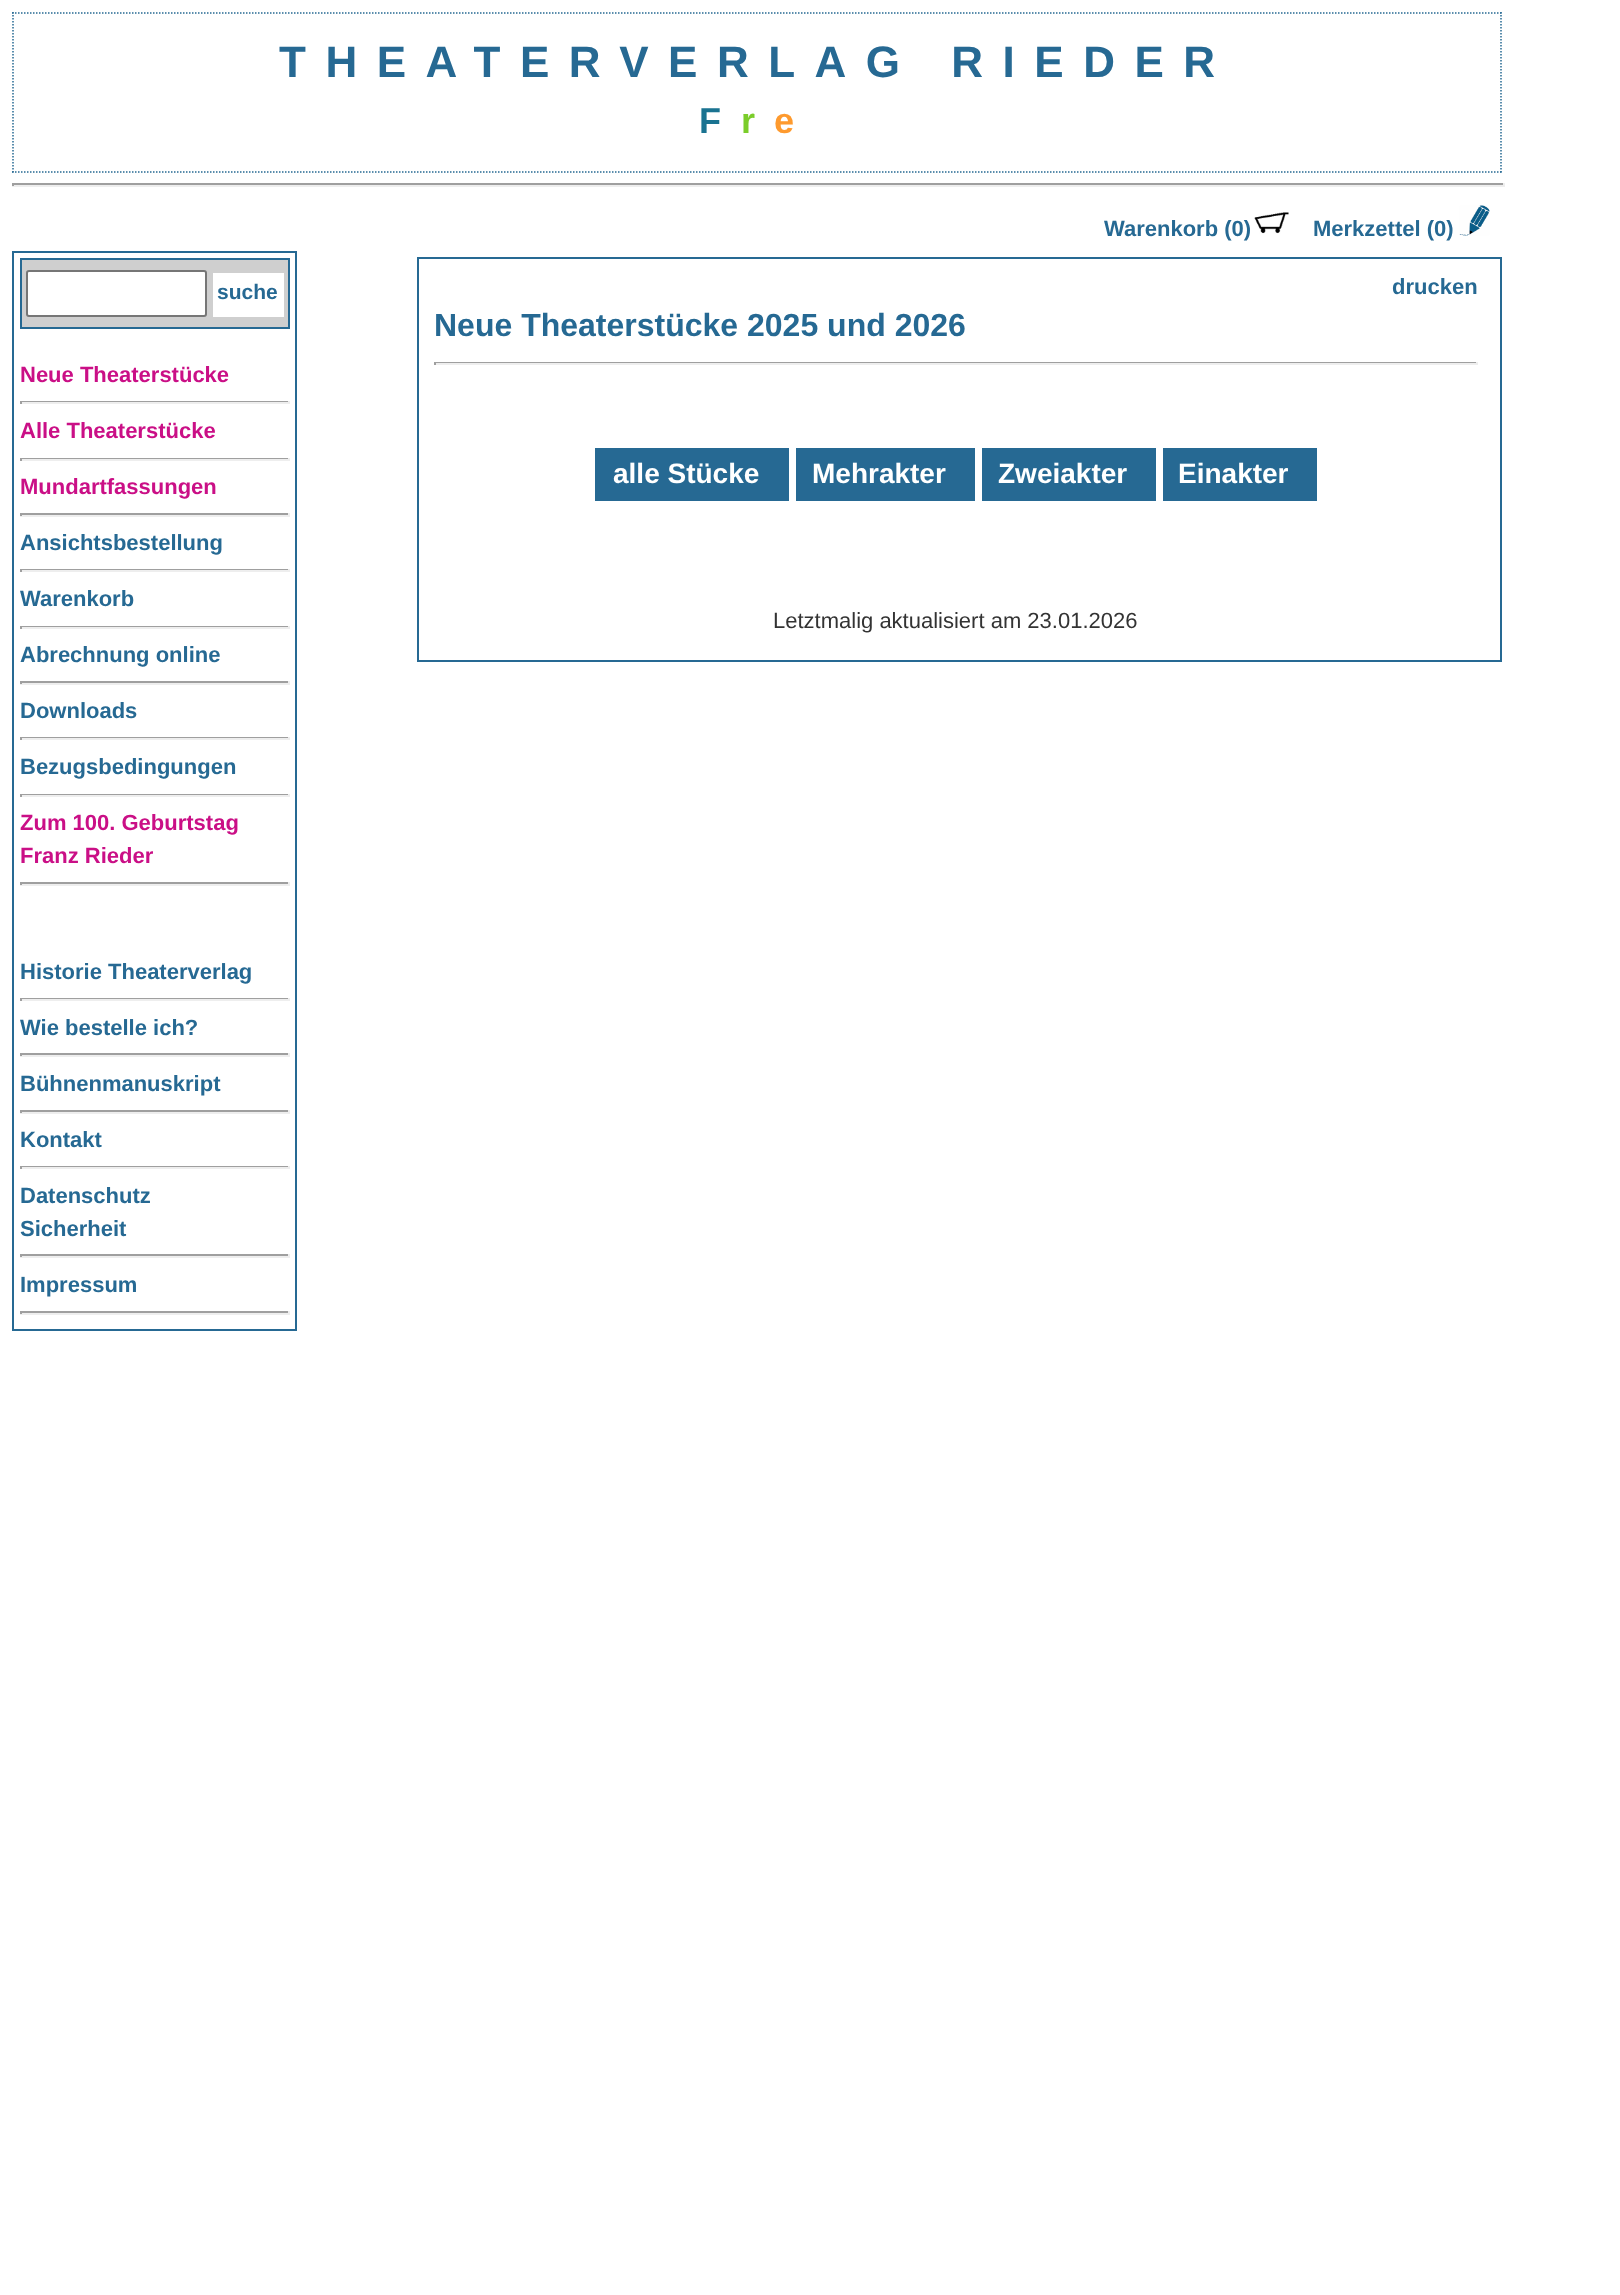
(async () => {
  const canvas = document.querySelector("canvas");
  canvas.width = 1620;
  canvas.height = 2295;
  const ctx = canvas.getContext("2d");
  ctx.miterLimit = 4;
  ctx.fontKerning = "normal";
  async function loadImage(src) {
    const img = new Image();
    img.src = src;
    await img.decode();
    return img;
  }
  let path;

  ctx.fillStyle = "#ffffff";
  ctx.fillRect(0, 0, 1620, 2295);
  path = new Path2D("M12 13H1501.5");
  ctx.strokeStyle = "#266993";
  ctx.lineWidth = 1.5;
  ctx.setLineDash([1.5, 1.5]);
  ctx.stroke(path);
  path = new Path2D("M1501 12V172.5");
  ctx.stroke(path);
  path = new Path2D("M12 172H1501.5");
  ctx.stroke(path);
  path = new Path2D("M13 12V172.5");
  ctx.stroke(path);
  for (const [x, y, w, h, color] of [
    [12, 183, 1493, 2, "#9f9f9f"],
    [1503, 183, 2, 3, "#eeeeee"],
    [12, 185, 1493, 2, "#eeeeee"],
    [12, 183, 2, 3, "#9f9f9f"],
  ]) {
    ctx.fillStyle = color;
    ctx.fillRect(x, y, w, h);
  }
  ctx.drawImage(await loadImage("img/1.png"), 1254, 212, 35, 22);
  ctx.drawImage(await loadImage("img/2.png"), 1459, 205, 31, 31);
  ctx.lineWidth = 2;
  ctx.setLineDash([]);
  ctx.strokeRect(13, 252, 283, 1078);
  ctx.fillStyle = "#cfcfcf";
  ctx.beginPath();
  ctx.rect(21, 259, 268, 69);
  ctx.fill();
  ctx.stroke();
  ctx.fillStyle = "#ffffff";
  ctx.beginPath();
  ctx.roundRect(27, 271, 179, 45, 2);
  ctx.fill();
  ctx.strokeStyle = "#767676";
  ctx.stroke();
  for (const [x, y, w, h, color] of [
    [213, 273, 71, 44, "#ffffff"],
    [20, 401, 270, 1, "#9f9f9f"],
    [288, 401, 2, 3, "#eeeeee"],
    [20, 402, 270, 2, "#eeeeee"],
    [20, 401, 2, 3, "#9f9f9f"],
    [20, 458, 270, 1, "#9f9f9f"],
    [288, 458, 2, 3, "#eeeeee"],
    [20, 459, 270, 2, "#eeeeee"],
    [20, 458, 2, 3, "#9f9f9f"],
    [20, 513, 270, 2, "#9f9f9f"],
    [288, 513, 2, 3, "#eeeeee"],
    [20, 515, 270, 2, "#eeeeee"],
    [20, 513, 2, 3, "#9f9f9f"],
    [20, 569, 270, 1, "#9f9f9f"],
    [288, 569, 2, 3, "#eeeeee"],
    [20, 570, 270, 2, "#eeeeee"],
    [20, 569, 2, 3, "#9f9f9f"],
    [20, 626, 270, 1, "#9f9f9f"],
    [288, 626, 2, 3, "#eeeeee"],
    [20, 627, 270, 2, "#eeeeee"],
    [20, 626, 2, 3, "#9f9f9f"],
    [20, 681, 270, 2, "#9f9f9f"],
    [288, 681, 2, 3, "#eeeeee"],
    [20, 683, 270, 2, "#eeeeee"],
    [20, 681, 2, 3, "#9f9f9f"],
    [20, 737, 270, 1, "#9f9f9f"],
    [288, 737, 2, 3, "#eeeeee"],
    [20, 738, 270, 2, "#eeeeee"],
    [20, 737, 2, 3, "#9f9f9f"],
    [20, 794, 270, 1, "#9f9f9f"],
    [288, 794, 2, 3, "#eeeeee"],
    [20, 795, 270, 2, "#eeeeee"],
    [20, 794, 2, 3, "#9f9f9f"],
    [20, 882, 270, 2, "#9f9f9f"],
    [288, 882, 2, 3, "#eeeeee"],
    [20, 884, 270, 2, "#eeeeee"],
    [20, 882, 2, 3, "#9f9f9f"],
    [20, 998, 270, 1, "#9f9f9f"],
    [288, 998, 2, 3, "#eeeeee"],
    [20, 999, 270, 2, "#eeeeee"],
    [20, 998, 2, 3, "#9f9f9f"],
    [20, 1053, 270, 2, "#9f9f9f"],
    [288, 1053, 2, 3, "#eeeeee"],
    [20, 1055, 270, 2, "#eeeeee"],
    [20, 1053, 2, 3, "#9f9f9f"],
    [20, 1110, 270, 2, "#9f9f9f"],
    [288, 1110, 2, 3, "#eeeeee"],
    [20, 1112, 270, 2, "#eeeeee"],
    [20, 1110, 2, 3, "#9f9f9f"],
    [20, 1166, 270, 1, "#9f9f9f"],
    [288, 1166, 2, 3, "#eeeeee"],
    [20, 1167, 270, 2, "#eeeeee"],
    [20, 1166, 2, 3, "#9f9f9f"],
    [20, 1254, 270, 2, "#9f9f9f"],
    [288, 1254, 2, 3, "#eeeeee"],
    [20, 1256, 270, 2, "#eeeeee"],
    [20, 1254, 2, 3, "#9f9f9f"],
    [20, 1311, 270, 2, "#9f9f9f"],
    [288, 1311, 2, 3, "#eeeeee"],
    [20, 1313, 270, 2, "#eeeeee"],
    [20, 1311, 2, 3, "#9f9f9f"],
  ]) {
    ctx.fillStyle = color;
    ctx.fillRect(x, y, w, h);
  }
  ctx.strokeStyle = "#266993";
  ctx.strokeRect(418, 258, 1083, 403);
  for (const [x, y, w, h, color] of [
    [434, 362, 1044, 1, "#9f9f9f"],
    [1476, 362, 2, 3, "#eeeeee"],
    [434, 363, 1044, 2, "#eeeeee"],
    [434, 362, 2, 3, "#9f9f9f"],
    [595, 448, 194, 53, "#266993"],
    [796, 448, 179, 53, "#266993"],
    [982, 448, 174, 53, "#266993"],
    [1163, 448, 154, 53, "#266993"],
  ]) {
    ctx.fillStyle = color;
    ctx.fillRect(x, y, w, h);
  }
  ctx.letterSpacing = "19.5px";
  ctx.font = "bold 44px Liberation Sans";
  ctx.fillText("THEATERVERLAG RIEDER", 279, 77);
  ctx.font = "bold 36px Liberation Sans";
  ctx.fillStyle = "#1a7391";
  ctx.fillText("F", 699, 133);
  ctx.fillStyle = "#7bcd2a";
  ctx.fillText("r", 741, 133);
  ctx.fillStyle = "#fe9a2e";
  ctx.fillText("e", 774, 133);
  ctx.letterSpacing = "0px";
  ctx.font = "bold 22px Liberation Sans";
  ctx.fillStyle = "#266993";
  ctx.fillText("Warenkorb (0)", 1104, 236);
  ctx.fillText("Merkzettel (0)", 1313, 236);
  ctx.font = "bold 21px Liberation Sans";
  ctx.fillText("suche", 217, 299);
  ctx.font = "bold 22px Liberation Sans";
  ctx.fillStyle = "#ca0f86";
  for (const [text, x, y] of [
    ["Neue Theaterstücke", 20, 382],
    ["Alle Theaterstücke", 20, 438],
    ["Mundartfassungen", 20, 494],
  ]) {
    ctx.fillText(text, x, y);
  }
  ctx.fillStyle = "#266993";
  for (const [text, x, y] of [
    ["Ansichtsbestellung", 20, 550],
    ["Warenkorb", 20, 606],
    ["Abrechnung online", 20, 662],
    ["Downloads", 20, 718],
    ["Bezugsbedingungen", 20, 774],
  ]) {
    ctx.fillText(text, x, y);
  }
  ctx.fillStyle = "#ca0f86";
  ctx.fillText("Zum 100. Geburtstag", 20, 830);
  ctx.fillText("Franz Rieder", 20, 863);
  ctx.fillStyle = "#266993";
  for (const [text, x, y] of [
    ["Historie Theaterverlag", 20, 979],
    ["Wie bestelle ich?", 20, 1035],
    ["Bühnenmanuskript", 20, 1091],
    ["Kontakt", 20, 1147],
    ["Datenschutz", 20, 1203],
    ["Sicherheit", 20, 1236],
    ["Impressum", 20, 1292],
    ["drucken", 1392, 294],
  ]) {
    ctx.fillText(text, x, y);
  }
  ctx.font = "bold 32px Liberation Sans";
  ctx.fillText("Neue Theaterstücke 2025 und 2026", 434, 336);
  ctx.font = "bold 28px Liberation Sans";
  ctx.fillStyle = "#ffffff";
  for (const [text, x, y] of [
    ["alle Stücke", 613, 483],
    ["Mehrakter", 812, 483],
    ["Zweiakter", 998, 483],
    ["Einakter", 1178, 483],
  ]) {
    ctx.fillText(text, x, y);
  }
  ctx.font = "22px Liberation Sans";
  ctx.fillStyle = "#333333";
  ctx.fillText("Letztmalig aktualisiert am 23.01.2026", 773, 628);
})();
